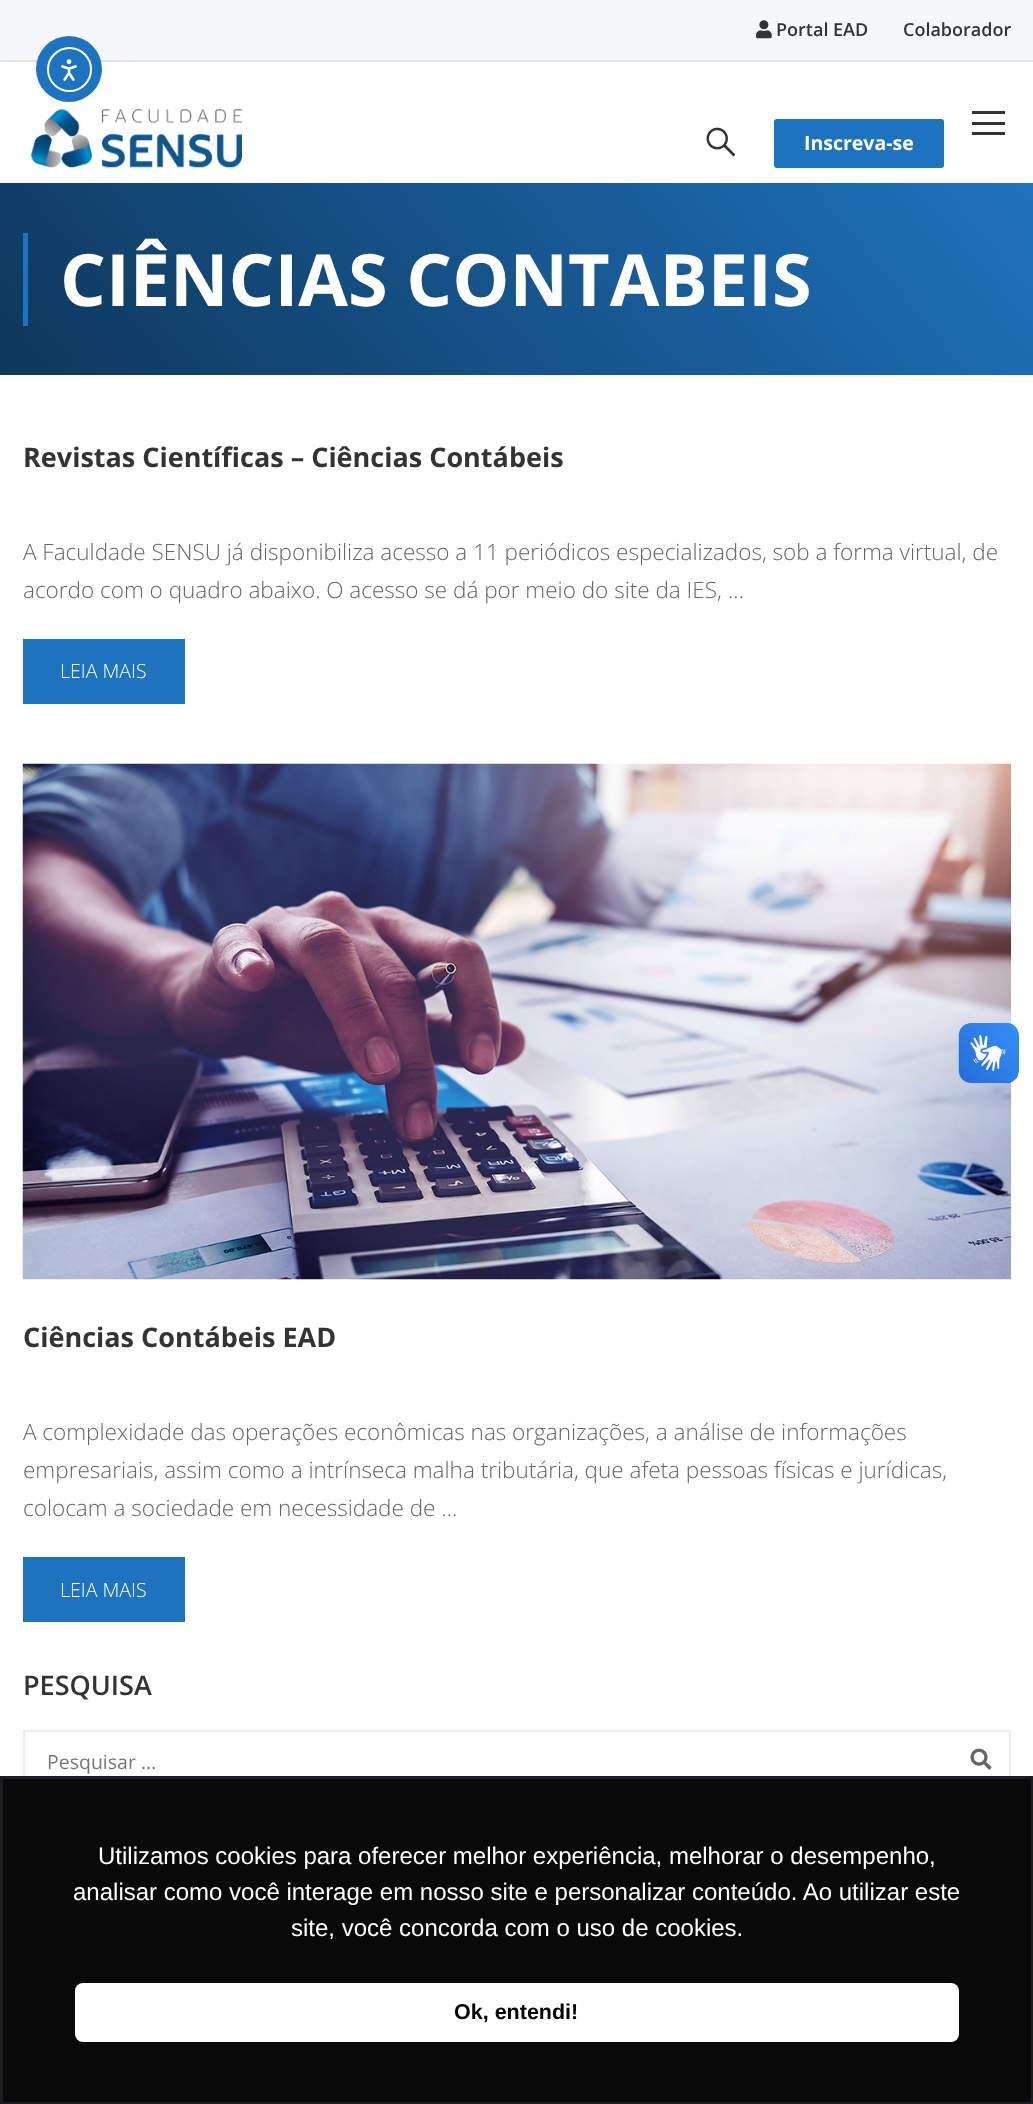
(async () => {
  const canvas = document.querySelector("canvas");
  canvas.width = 1033;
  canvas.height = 2104;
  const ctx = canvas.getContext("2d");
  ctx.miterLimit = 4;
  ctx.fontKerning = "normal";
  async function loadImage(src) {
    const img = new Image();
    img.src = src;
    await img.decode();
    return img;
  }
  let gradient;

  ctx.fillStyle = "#ffffff";
  ctx.fillRect(0, 0, 1033, 2104);
  ctx.fillStyle = "#f6f7f8";
  ctx.fillRect(0, 0, 1033, 60);
  ctx.fillStyle = "#e3e3e3";
  ctx.fillRect(0, 60, 1033, 2);
  ctx.drawImage(await loadImage("img/1.png"), 756, 20, 16, 19);
  ctx.drawImage(await loadImage("img/2.png"), 31, 109, 211, 59);
  for (const [x, y, w, h, color] of [
    [972, 111, 33, 3, "#333333"],
    [972, 122, 33, 3, "#333333"],
    [972, 132, 33, 3, "#333333"],
  ]) {
    ctx.fillStyle = color;
    ctx.fillRect(x, y, w, h);
  }
  ctx.drawImage(await loadImage("img/3.png"), 706, 127, 30, 30);
  ctx.fillStyle = "#1e73be";
  ctx.beginPath();
  ctx.roundRect(774, 119, 170, 49, 3);
  ctx.fill();
  gradient = ctx.createLinearGradient(166, 573, 867, -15);
  gradient.addColorStop(0, "#0e375b");
  gradient.addColorStop(1, "#1e73be");
  ctx.fillStyle = gradient;
  ctx.fillRect(0, 183, 1033, 192);
  ctx.fillStyle = "#1e73be";
  ctx.fillRect(23, 233, 5, 93);
  ctx.fillRect(23, 639, 162, 65);
  ctx.drawImage(await loadImage("img/4.png"), 22, 763, 989, 517);
  ctx.fillRect(23, 1557, 162, 65);
  ctx.strokeStyle = "#eeeeee";
  ctx.lineWidth = 2;
  ctx.strokeRect(24, 1731, 986, 61);
  ctx.drawImage(await loadImage("img/5.png"), 970, 1748, 22, 22);
  ctx.beginPath();
  ctx.arc(69, 69, 33, 0, Math.PI * 2);
  ctx.fill();
  ctx.beginPath();
  ctx.arc(69.5, 69.5, 21.5, 0, Math.PI * 2);
  ctx.strokeStyle = "#ffffff";
  ctx.stroke();
  ctx.drawImage(await loadImage("img/6.png"), 61, 59, 16, 22);
  ctx.drawImage(await loadImage("img/7.png"), 958, 1023, 61, 60);
  ctx.drawImage(await loadImage("img/8.png"), 959, 1023, 60, 60);
  ctx.fillStyle = "#090909";
  ctx.beginPath();
  ctx.rect(1.5, 1777.5, 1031, 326);
  ctx.fill();
  ctx.strokeStyle = "#1b1d20";
  ctx.lineWidth = 3;
  ctx.stroke();
  ctx.fillStyle = "#ffffff";
  ctx.beginPath();
  ctx.roundRect(75, 1983, 884, 59, 8);
  ctx.fill();
  ctx.font = "600 18px Open Sans";
  ctx.fillStyle = "#333333";
  ctx.fillText("Portal EAD", 776, 36);
  ctx.fillText("Colaborador", 903, 36);
  ctx.font = "bold 19.5px Open Sans";
  ctx.fillStyle = "#ffffff";
  ctx.fillText("Inscreva-se", 804, 150);
  ctx.font = "bold 72px Open Sans";
  ctx.fillText("CIÊNCIAS CONTABEIS", 60, 306);
  ctx.font = "bold 27px Open Sans";
  ctx.fillStyle = "#333333";
  ctx.fillText("Revistas Científicas – Ciências Contábeis", 23, 467);
  ctx.font = "300 22.5px Open Sans";
  ctx.fillStyle = "#666666";
  ctx.fillText("A Faculdade SENSU já disponibiliza acesso a 11 periódicos especializados, sob a forma virtual, de", 23, 560);
  ctx.fillText("acordo com o quadro abaixo. O acesso se dá por meio do site da IES, …", 23, 598);
  ctx.font = "300 19.5px Open Sans";
  ctx.fillStyle = "#ffffff";
  ctx.fillText("LEIA MAIS", 60, 678);
  ctx.font = "bold 27px Open Sans";
  ctx.fillStyle = "#333333";
  ctx.fillText("Ciências Contábeis EAD", 23, 1347);
  ctx.font = "300 22.5px Open Sans";
  ctx.fillStyle = "#666666";
  for (const [text, x, y] of [
    ["A complexidade das operações econômicas nas organizações, a análise de informações", 23, 1440],
    ["empresariais, assim como a intrínseca malha tributária, que afeta pessoas físicas e jurídicas,", 23, 1478],
    ["colocam a sociedade em necessidade de …", 23, 1516],
  ]) {
    ctx.fillText(text, x, y);
  }
  ctx.font = "300 19.5px Open Sans";
  ctx.fillStyle = "#ffffff";
  ctx.fillText("LEIA MAIS", 60, 1597);
  ctx.font = "600 27px Open Sans";
  ctx.fillStyle = "#333333";
  ctx.fillText("PESQUISA", 23, 1695);
  ctx.font = "19.5px Open Sans";
  ctx.fillStyle = "#757575";
  ctx.fillText("Pesquisar …", 47, 1769);
  ctx.font = "24px Liberation Sans";
  ctx.fillStyle = "#ffffff";
  for (const [text, x, y] of [
    ["Utilizamos cookies para oferecer melhor experiência, melhorar o desempenho,", 98, 1864],
    ["analisar como você interage em nosso site e personalizar conteúdo. Ao utilizar este", 73, 1900],
    ["site, você concorda com o uso de cookies.", 291, 1936],
  ]) {
    ctx.fillText(text, x, y);
  }
  ctx.font = "bold 21.5px Liberation Sans";
  ctx.fillStyle = "#000000";
  ctx.fillText("Ok, entendi!", 454, 2019);
})();
